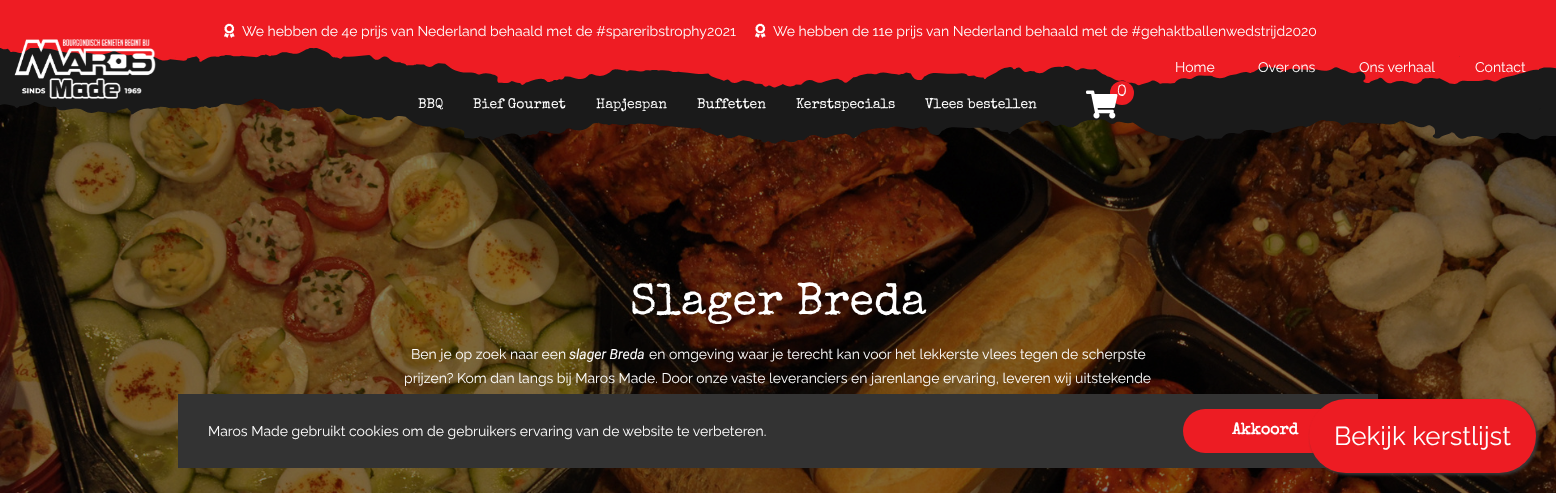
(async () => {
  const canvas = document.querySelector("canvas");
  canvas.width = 1556;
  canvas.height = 493;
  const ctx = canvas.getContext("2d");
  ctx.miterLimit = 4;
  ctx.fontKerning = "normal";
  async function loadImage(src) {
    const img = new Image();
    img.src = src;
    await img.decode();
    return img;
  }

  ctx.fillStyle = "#ffffff";
  ctx.fillRect(0, 0, 1556, 493);
  ctx.fillStyle = "#ee1c23";
  ctx.fillRect(0, 0, 1556, 48);
  ctx.drawImage(await loadImage("img/1.png"), 224, 23, 11, 15);
  ctx.drawImage(await loadImage("img/1.png"), 755, 23, 11, 15);
  ctx.fillStyle = "#1a1a1a";
  ctx.fillRect(0, 48, 1556, 43);
  ctx.drawImage(await loadImage("img/3.png"), 0, 48, 1556, 40);
  ctx.drawImage(await loadImage("img/6.png"), 0, 98, 1556, 395);
  ctx.drawImage(await loadImage("img/4.png"), 0, 91, 1556, 53);
  ctx.drawImage(await loadImage("img/2.png"), 14, 39, 142, 60);
  ctx.fillStyle = "#ed1c23";
  ctx.beginPath();
  ctx.arc(1122, 93, 12, 0, Math.PI * 2);
  ctx.fill();
  ctx.drawImage(await loadImage("img/5.png"), 1086, 90, 32, 29);
  ctx.fillStyle = "#333333";
  ctx.fillRect(178, 394, 1200, 74);
  ctx.fillStyle = "#ed1c23";
  ctx.beginPath();
  ctx.roundRect(1183, 409, 165, 44, 22);
  ctx.fill();
  ctx.fillStyle = "#393939";
  ctx.filter = "blur(1.5px)";
  ctx.beginPath();
  ctx.roundRect(1311, 401, 227, 74, 37);
  ctx.fill();
  ctx.filter = "none";
  ctx.fillStyle = "#ed1c23";
  ctx.beginPath();
  ctx.roundRect(1309, 399, 227, 74, 37);
  ctx.fill();
  ctx.font = "14px Raleway";
  ctx.fillStyle = "#ffffff";
  for (const [text, x, y] of [
    ["We hebben de 4e prijs van Nederland behaald met de #spareribstrophy2021", 242, 36],
    ["We hebben de 11e prijs van Nederland behaald met de #gehaktballenwedstrijd2020", 773, 36],
    ["Home", 1175, 72],
    ["Over ons", 1258, 72],
    ["Ons verhaal", 1359, 72],
    ["Contact", 1475, 72],
  ]) {
    ctx.fillText(text, x, y);
  }
  ctx.font = "16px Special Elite";
  ctx.fillText("0", 1117, 96);
  ctx.font = "14px Special Elite";
  for (const [text, x, y] of [
    ["BBQ", 418, 108],
    ["Bief Gourmet", 473, 108],
    ["Hapjespan", 596, 108],
    ["Buffetten", 697, 108],
    ["Kerstspecials", 796, 108],
    ["Vlees bestellen", 925, 108],
  ]) {
    ctx.fillText(text, x, y);
  }
  ctx.font = "45px Special Elite";
  ctx.fillText("Slager Breda", 630, 314);
  ctx.font = "14px Raleway";
  ctx.fillText("Ben je op zoek naar een", 411, 359);
  ctx.font = "italic 14px Roboto";
  ctx.fillText("slager Breda", 569, 359);
  ctx.font = "14px Raleway";
  for (const [text, x, y] of [
    ["en omgeving waar je terecht kan voor het lekkerste vlees tegen de scherpste", 649, 359],
    ["prijzen? Kom dan langs bij Maros Made. Door onze vaste leveranciers en jarenlange ervaring, leveren wij uitstekende", 404, 383],
    ["Maros Made gebruikt cookies om de gebruikers ervaring van de website te verbeteren.", 208, 436],
  ]) {
    ctx.fillText(text, x, y);
  }
  ctx.font = "bold 16px Special Elite";
  ctx.fillText("Akkoord", 1232, 434);
  ctx.font = "26px Raleway";
  ctx.fillText("Bekijk kerstlijst", 1334, 445);
})();
